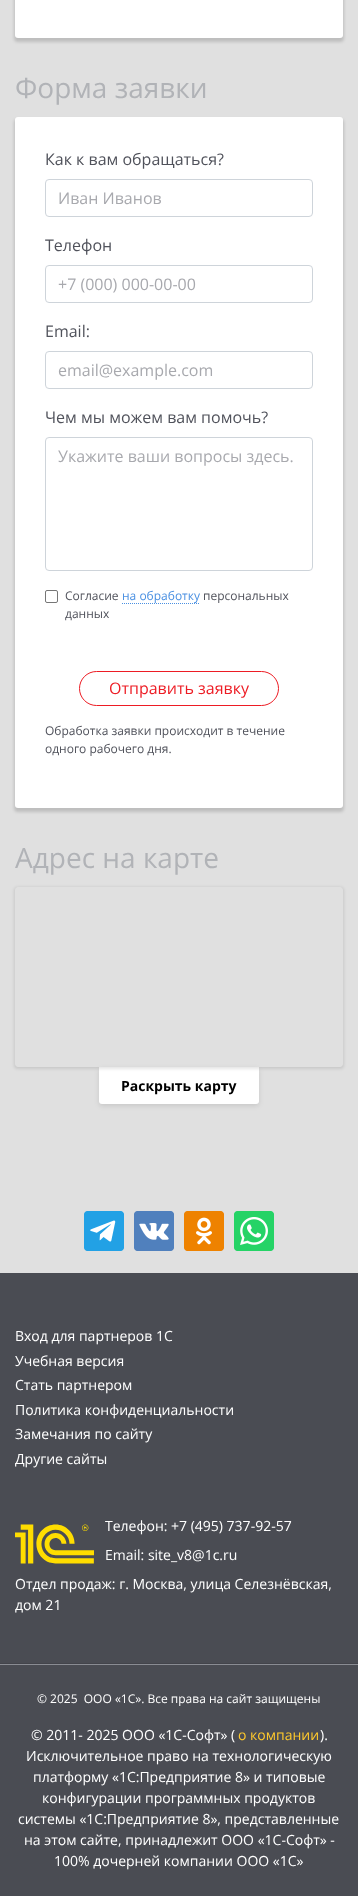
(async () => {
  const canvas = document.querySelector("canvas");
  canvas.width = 358;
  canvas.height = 1896;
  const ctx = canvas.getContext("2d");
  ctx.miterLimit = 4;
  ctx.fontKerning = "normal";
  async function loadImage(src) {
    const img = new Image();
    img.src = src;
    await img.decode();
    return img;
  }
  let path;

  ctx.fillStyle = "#e0e0e0";
  ctx.fillRect(0, 0, 358, 1896);
  ctx.fillStyle = "rgba(0, 0, 0, 0.15)";
  ctx.filter = "blur(1.5px)";
  ctx.beginPath();
  ctx.roundRect(14, -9, 330, 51, 4);
  ctx.fill();
  ctx.filter = "none";
  ctx.fillStyle = "#ffffff";
  ctx.beginPath();
  ctx.roundRect(15, -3, 328, 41, 3);
  ctx.fill();
  ctx.fillStyle = "rgba(0, 0, 0, 0.15)";
  ctx.filter = "blur(1.5px)";
  ctx.beginPath();
  ctx.roundRect(14, 119, 330, 693, 4);
  ctx.fill();
  ctx.filter = "none";
  ctx.fillStyle = "#ffffff";
  ctx.beginPath();
  ctx.roundRect(15, 117, 328, 691, 3);
  ctx.fill();
  ctx.beginPath();
  ctx.roundRect(45.5, 179.5, 267, 37, 3.5);
  ctx.strokeStyle = "#ced4da";
  ctx.stroke();
  ctx.beginPath();
  ctx.roundRect(45.5, 265.5, 267, 37, 3.5);
  ctx.stroke();
  ctx.beginPath();
  ctx.roundRect(45.5, 351.5, 267, 37, 3.5);
  ctx.stroke();
  ctx.beginPath();
  ctx.roundRect(45.5, 437.5, 267, 133, 3.5);
  ctx.stroke();
  ctx.beginPath();
  ctx.roundRect(45.5, 590.5, 12, 12, 1.5);
  ctx.strokeStyle = "#767676";
  ctx.stroke();
  path = new Path2D("M122 603.5H200");
  ctx.strokeStyle = "#4a90e2";
  ctx.setLineDash([1, 1]);
  ctx.stroke(path);
  ctx.beginPath();
  ctx.roundRect(79.5, 671.5, 199, 34, 17);
  ctx.strokeStyle = "#ed1c24";
  ctx.setLineDash([]);
  ctx.stroke();
  ctx.fillStyle = "rgba(0, 0, 0, 0.1)";
  ctx.filter = "blur(2.5px)";
  ctx.beginPath();
  ctx.roundRect(99, 1069, 160, 37, 3);
  ctx.fill();
  ctx.filter = "none";
  ctx.fillStyle = "#ffffff";
  ctx.beginPath();
  ctx.roundRect(99, 1067, 160, 37, [0, 0, 3, 3]);
  ctx.fill();
  ctx.save();
  path = new Path2D("M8 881H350V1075H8ZM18 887H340C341.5 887 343 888.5 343 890V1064C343 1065.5 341.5 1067 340 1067H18C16.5 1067 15 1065.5 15 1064V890C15 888.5 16.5 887 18 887Z");
  ctx.clip(path, "evenodd");
  ctx.fillStyle = "rgba(0, 0, 0, 0.1)";
  ctx.filter = "blur(1.5px)";
  ctx.beginPath();
  ctx.roundRect(14, 887, 330, 182, 4);
  ctx.fill();
  ctx.filter = "none";
  ctx.restore();
  ctx.drawImage(await loadImage("img/1.png"), 84, 1211, 40, 40);
  ctx.drawImage(await loadImage("img/2.png"), 134, 1211, 40, 40);
  ctx.drawImage(await loadImage("img/3.png"), 184, 1211, 40, 40);
  ctx.drawImage(await loadImage("img/4.png"), 234, 1211, 40, 40);
  ctx.fillStyle = "#4a4c53";
  ctx.fillRect(0, 1273, 358, 623);
  ctx.drawImage(await loadImage("img/5.png"), 15, 1524, 79, 40);
  ctx.fillStyle = "#43444b";
  ctx.fillRect(0, 1663, 358, 1);
  ctx.fillStyle = "#8a8c93";
  ctx.fillRect(0, 1664, 358, 1);
  ctx.font = "28px Open Sans";
  ctx.fillStyle = "#b1b3b7";
  ctx.fillText("Форма заявки", 15, 98);
  ctx.font = "16px Open Sans";
  ctx.fillStyle = "#50525b";
  ctx.fillText("Как к вам обращаться?", 45, 165);
  ctx.fillStyle = "#a8a9ae";
  ctx.fillText("Иван Иванов", 58, 204);
  ctx.fillStyle = "#50525b";
  ctx.fillText("Телефон", 45, 251);
  ctx.fillStyle = "#a8a9ae";
  ctx.fillText("+7 (000) 000-00-00", 58, 290);
  ctx.fillStyle = "#50525b";
  ctx.fillText("Email:", 45, 337);
  ctx.fillStyle = "#a8a9ae";
  ctx.fillText("email@example.com", 58, 376);
  ctx.fillStyle = "#50525b";
  ctx.fillText("Чем мы можем вам помочь?", 45, 423);
  ctx.fillStyle = "#a8a9ae";
  ctx.fillText("Укажите ваши вопросы здесь.", 58, 462);
  ctx.font = "12px Open Sans";
  ctx.fillStyle = "#50525b";
  ctx.fillText("Согласие", 65, 600);
  ctx.fillStyle = "#4a90e2";
  ctx.fillText("на обработку", 122, 600);
  ctx.fillStyle = "#50525b";
  ctx.fillText("персональных", 203, 600);
  ctx.fillText("данных", 65, 618);
  ctx.font = "16px Open Sans";
  ctx.fillStyle = "#ed1c24";
  ctx.fillText("Отправить заявку", 109, 694);
  ctx.font = "12px Open Sans";
  ctx.fillStyle = "#50525b";
  ctx.fillText("Обработка заявки происходит в течение", 45, 735);
  ctx.fillText("одного рабочего дня.", 45, 753);
  ctx.font = "28px Open Sans";
  ctx.fillStyle = "#b1b3b7";
  ctx.fillText("Адрес на карте", 15, 868);
  ctx.font = "bold 14px Open Sans";
  ctx.fillStyle = "#000000";
  ctx.fillText("Раскрыть карту", 121, 1091);
  ctx.font = "14px Open Sans";
  ctx.fillStyle = "#ffffff";
  for (const [text, x, y] of [
    ["Вход для партнеров 1С", 15, 1341],
    ["Учебная версия", 15, 1366],
    ["Стать партнером", 15, 1390],
    ["Политика конфиденциальности", 15, 1415],
    ["Замечания по сайту", 15, 1439],
    ["Другие сайты", 15, 1464],
    ["Телефон: +7 (495) 737-92-57", 105, 1531],
    ["Email: site_v8@1c.ru", 105, 1560],
    ["Отдел продаж: г. Москва, улица Селезнёвская,", 15, 1589],
    ["дом 21", 15, 1610],
  ]) {
    ctx.fillText(text, x, y);
  }
  ctx.font = "12px Open Sans";
  ctx.fillText("© 2025  ООО «1С». Все права на сайт защищены", 37, 1703);
  ctx.font = "14px Open Sans";
  ctx.fillText("© 2011- 2025 ООО «1С-Софт» (", 31, 1740);
  ctx.fillStyle = "#ffc92c";
  ctx.fillText("о компании", 238, 1740);
  ctx.fillStyle = "#ffffff";
  for (const [text, x, y] of [
    [").", 320, 1740],
    ["Исключительное право на технологическую", 26, 1761],
    ["платформу «1С:Предприятие 8» и типовые", 33, 1782],
    ["конфигурации программных продуктов", 42, 1803],
    ["системы «1С:Предприятие 8», представленные", 18, 1824],
    ["на этом сайте, принадлежит ООО «1С-Софт» -", 24, 1845],
    ["100% дочерней компании ООО «1С»", 54, 1866],
  ]) {
    ctx.fillText(text, x, y);
  }
})();
